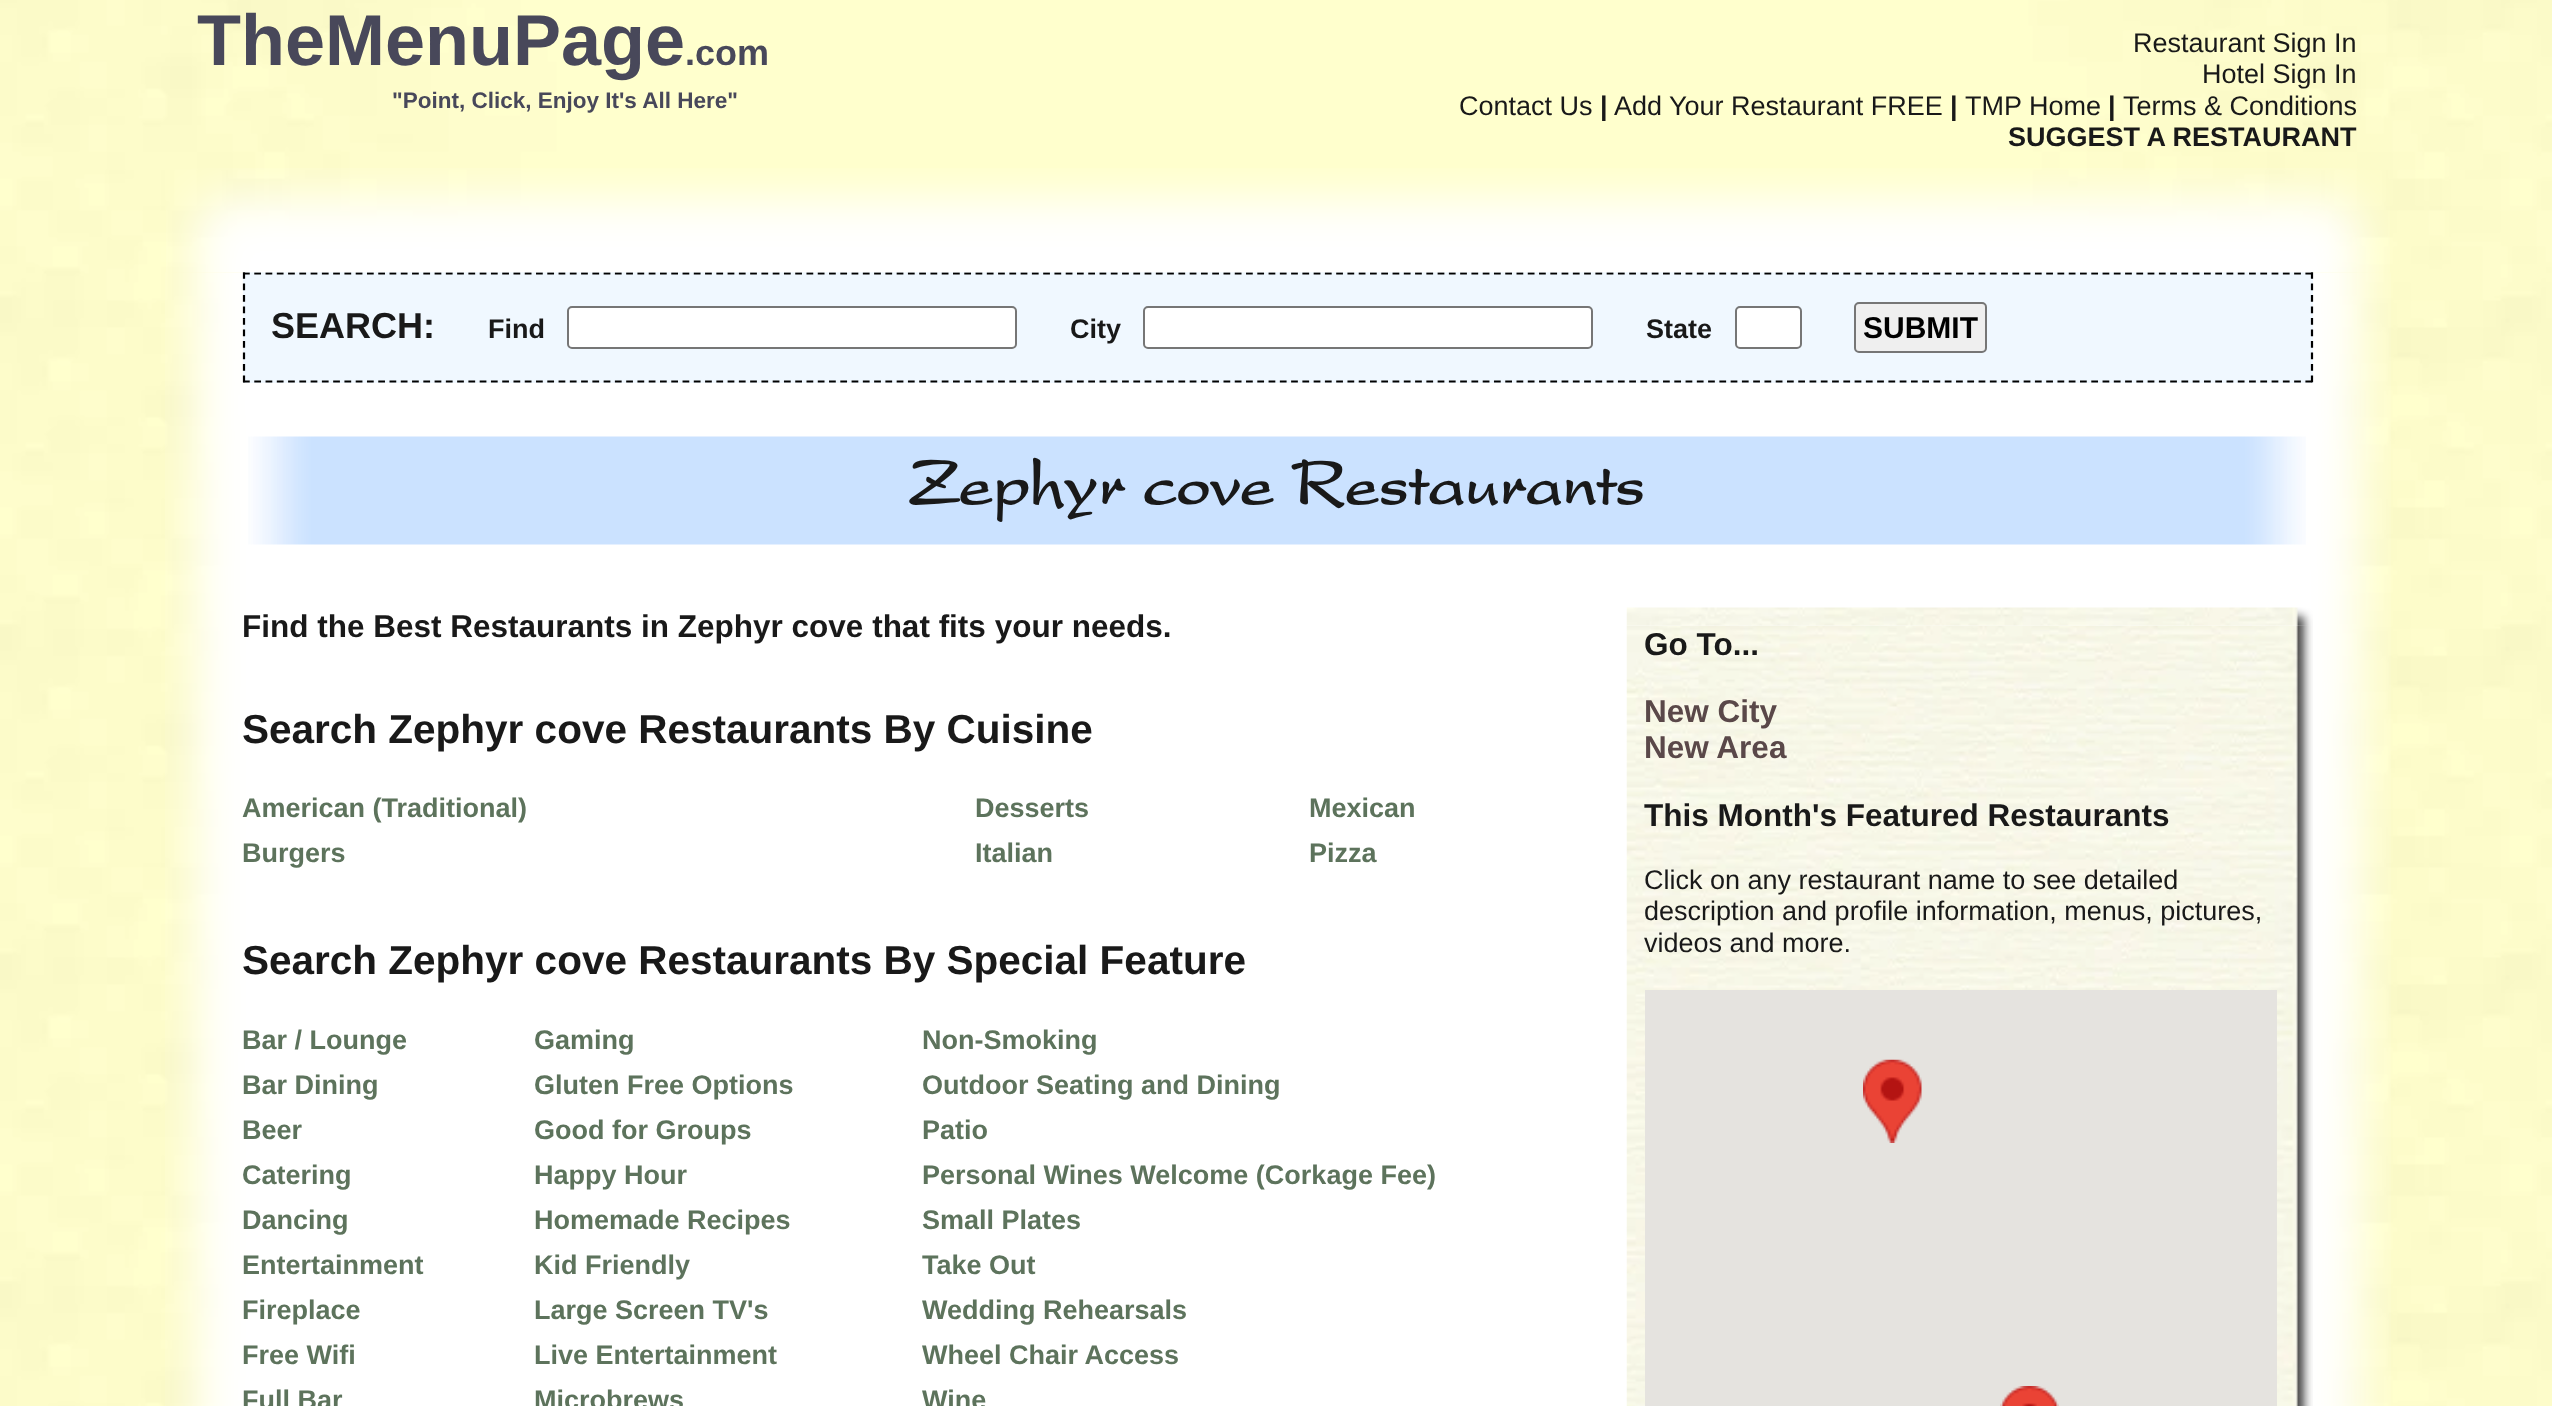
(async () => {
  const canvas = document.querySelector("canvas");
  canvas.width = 2552;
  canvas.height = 1406;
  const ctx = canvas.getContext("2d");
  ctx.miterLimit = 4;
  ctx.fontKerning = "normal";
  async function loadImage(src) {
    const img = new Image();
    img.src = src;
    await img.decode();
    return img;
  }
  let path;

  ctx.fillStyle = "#ffffff";
  ctx.fillRect(0, 0, 2552, 1406);
  ctx.drawImage(await loadImage("img/1.png"), 0, 0, 2552, 1406);
  ctx.drawImage(await loadImage("img/3.png"), 165, 272, 2226, 1134);
  ctx.fillStyle = "#f0f8ff";
  ctx.fillRect(243, 272, 2070, 111);
  path = new Path2D("M243 273.5H2313");
  ctx.strokeStyle = "#000000";
  ctx.lineWidth = 2.2;
  ctx.setLineDash([6.75, 4.52]);
  ctx.stroke(path);
  path = new Path2D("M2312 272V382.5");
  ctx.setLineDash([6.75, 4.75]);
  ctx.stroke(path);
  path = new Path2D("M243 381.5H2313");
  ctx.setLineDash([6.75, 4.52]);
  ctx.stroke(path);
  path = new Path2D("M244 272V382.5");
  ctx.setLineDash([6.75, 4.75]);
  ctx.stroke(path);
  ctx.drawImage(await loadImage("img/2.png"), 166, 168, 2224, 105);
  ctx.fillStyle = "#ffffff";
  ctx.beginPath();
  ctx.roundRect(568, 307, 448, 41, 4);
  ctx.fill();
  ctx.strokeStyle = "#767676";
  ctx.lineWidth = 2;
  ctx.setLineDash([]);
  ctx.stroke();
  ctx.beginPath();
  ctx.roundRect(1144, 307, 448, 41, 4);
  ctx.fill();
  ctx.stroke();
  ctx.beginPath();
  ctx.roundRect(1736, 307, 65, 41, 4);
  ctx.fill();
  ctx.stroke();
  ctx.fillStyle = "#efefef";
  ctx.beginPath();
  ctx.roundRect(1855, 303, 131, 49, 4);
  ctx.fill();
  ctx.stroke();
  ctx.drawImage(await loadImage("img/4.png"), 248, 436, 2058, 109);
  ctx.drawImage(await loadImage("img/6.png"), 1626, 625, 687, 781);
  ctx.drawImage(await loadImage("img/5.png"), 1626, 607, 687, 19);
  ctx.fillStyle = "#e5e3df";
  ctx.fillRect(1645, 990, 632, 416);
  ctx.drawImage(await loadImage("img/7.png"), 1863, 1059, 59, 84);
  ctx.drawImage(await loadImage("img/8.png"), 2000, 1386, 59, 20);
  ctx.font = "bold 72px Liberation Sans";
  ctx.fillStyle = "#48485a";
  ctx.fillText("TheMenuPage", 197, 65);
  ctx.font = "bold 36px Liberation Sans";
  ctx.fillText(".com", 685, 65);
  ctx.font = "27px Liberation Sans";
  ctx.fillStyle = "#191919";
  for (const [text, x, y] of [
    ["Restaurant Sign In", 2133, 52],
    ["Hotel Sign In", 2202, 83],
    ["Contact Us", 1459, 115],
  ]) {
    ctx.fillText(text, x, y);
  }
  ctx.font = "bold 27px Liberation Sans";
  ctx.fillText("|", 1600, 115);
  ctx.font = "27px Liberation Sans";
  ctx.fillText("Add Your Restaurant FREE", 1614, 115);
  ctx.font = "bold 27px Liberation Sans";
  ctx.fillText("|", 1950, 115);
  ctx.font = "27px Liberation Sans";
  ctx.fillText("TMP Home", 1965, 115);
  ctx.font = "bold 27px Liberation Sans";
  ctx.fillText("|", 2108, 115);
  ctx.font = "27px Liberation Sans";
  ctx.fillText("Terms & Conditions", 2123, 115);
  ctx.font = "bold 27px Liberation Sans";
  ctx.fillText("SUGGEST A RESTAURANT", 2008, 146);
  ctx.font = "bold 22.5px Liberation Sans";
  ctx.fillStyle = "#48485a";
  ctx.fillText("\"Point, Click, Enjoy It's All Here\"", 392, 108);
  ctx.font = "bold 36px Liberation Sans";
  ctx.fillStyle = "#191919";
  ctx.fillText("SEARCH:", 271, 338);
  ctx.font = "bold 27px Liberation Sans";
  for (const [text, x, y] of [
    ["Find", 488, 338],
    ["City", 1070, 338],
    ["State", 1646, 338],
  ]) {
    ctx.fillText(text, x, y);
  }
  ctx.font = "bold 30px Liberation Sans";
  ctx.fillStyle = "#000000";
  ctx.fillText("SUBMIT", 1863, 338);
  ctx.font = "bold 67.5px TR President";
  ctx.fillStyle = "#191919";
  ctx.fillText("Zephyr cove Restaurants", 909, 504);
  ctx.font = "bold 31.5px Liberation Sans";
  ctx.fillText("Find the Best Restaurants in Zephyr cove that fits your needs.", 242, 637);
  ctx.font = "bold 40.5px Liberation Sans";
  ctx.fillText("Search Zephyr cove Restaurants By Cuisine", 242, 743);
  ctx.font = "bold 27px Liberation Sans";
  ctx.fillStyle = "#5d735c";
  for (const [text, x, y] of [
    ["American (Traditional)", 242, 817],
    ["Desserts", 975, 817],
    ["Mexican", 1309, 817],
    ["Burgers", 242, 862],
    ["Italian", 975, 862],
    ["Pizza", 1309, 862],
  ]) {
    ctx.fillText(text, x, y);
  }
  ctx.font = "bold 40.5px Liberation Sans";
  ctx.fillStyle = "#191919";
  ctx.fillText("Search Zephyr cove Restaurants By Special Feature", 242, 974);
  ctx.font = "bold 27px Liberation Sans";
  ctx.fillStyle = "#5d735c";
  for (const [text, x, y] of [
    ["Bar / Lounge", 242, 1049],
    ["Gaming", 534, 1049],
    ["Non-Smoking", 922, 1049],
    ["Bar Dining", 242, 1094],
    ["Gluten Free Options", 534, 1094],
    ["Outdoor Seating and Dining", 922, 1094],
    ["Beer", 242, 1139],
    ["Good for Groups", 534, 1139],
    ["Patio", 922, 1139],
    ["Catering", 242, 1184],
    ["Happy Hour", 534, 1184],
    ["Personal Wines Welcome (Corkage Fee)", 922, 1184],
    ["Dancing", 242, 1229],
    ["Homemade Recipes", 534, 1229],
    ["Small Plates", 922, 1229],
    ["Entertainment", 242, 1274],
    ["Kid Friendly", 534, 1274],
    ["Take Out", 922, 1274],
    ["Fireplace", 242, 1319],
    ["Large Screen TV's", 534, 1319],
    ["Wedding Rehearsals", 922, 1319],
    ["Free Wifi", 242, 1364],
    ["Live Entertainment", 534, 1364],
    ["Wheel Chair Access", 922, 1364],
    ["Full Bar", 242, 1409],
    ["Microbrews", 534, 1409],
    ["Wine", 922, 1409],
  ]) {
    ctx.fillText(text, x, y);
  }
  ctx.font = "bold 31.5px Liberation Sans";
  ctx.fillStyle = "#191919";
  ctx.fillText("Go To...", 1644, 655);
  ctx.fillStyle = "#5a4849";
  ctx.fillText("New City", 1644, 722);
  ctx.fillText("New Area", 1644, 758);
  ctx.fillStyle = "#191919";
  ctx.fillText("This Month's Featured Restaurants", 1644, 826);
  ctx.font = "27px Liberation Sans";
  for (const [text, x, y] of [
    ["Click on any restaurant name to see detailed", 1644, 889],
    ["description and profile information, menus, pictures,", 1644, 920],
    ["videos and more.", 1644, 952],
  ]) {
    ctx.fillText(text, x, y);
  }
})();
